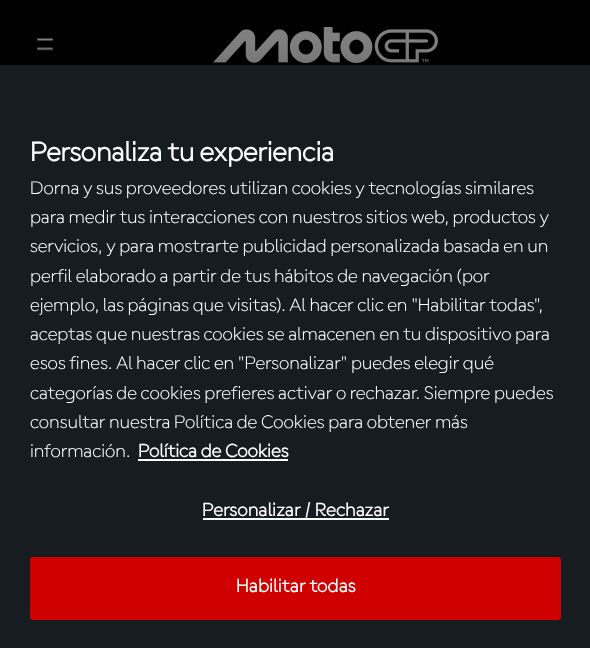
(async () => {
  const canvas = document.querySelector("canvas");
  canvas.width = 590;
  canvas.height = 648;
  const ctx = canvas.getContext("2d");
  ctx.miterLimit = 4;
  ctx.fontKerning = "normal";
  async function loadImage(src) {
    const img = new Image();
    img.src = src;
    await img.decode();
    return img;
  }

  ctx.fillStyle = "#000000";
  ctx.fillRect(0, 0, 590, 648);
  ctx.drawImage(await loadImage("img/1.png"), 37, 38, 16, 13);
  ctx.drawImage(await loadImage("img/2.png"), 213, 27, 225, 36);
  ctx.fillStyle = "rgba(0, 0, 0, 0.2)";
  ctx.filter = "blur(13.5px)";
  ctx.beginPath();
  ctx.rect(0, 65, 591, 583);
  ctx.fill();
  ctx.filter = "none";
  for (const [x, y, w, h, color] of [
    [0, 65, 590, 583, "#171c21"],
    [138, 459, 150, 2, "#ffffff"],
    [203, 518, 186, 2, "#ffffff"],
  ]) {
    ctx.fillStyle = color;
    ctx.fillRect(x, y, w, h);
  }
  ctx.fillStyle = "#d00000";
  ctx.beginPath();
  ctx.roundRect(31, 558, 529, 61, 2);
  ctx.fill();
  ctx.strokeStyle = "#d00000";
  ctx.lineWidth = 2;
  ctx.stroke();
  ctx.font = "bold 28.75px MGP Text";
  ctx.fillStyle = "#ffffff";
  ctx.fillText("Personaliza tu experiencia", 30, 161);
  ctx.font = "300 19.5px MGP Text";
  for (const [text, x, y] of [
    ["Dorna y sus proveedores utilizan cookies y tecnologías similares", 30, 194],
    ["para medir tus interacciones con nuestros sitios web, productos y", 30, 223],
    ["servicios, y para mostrarte publicidad personalizada basada en un", 30, 252],
    ["perfil elaborado a partir de tus hábitos de navegación (por", 30, 282],
    ["ejemplo, las páginas que visitas). Al hacer clic en \"Habilitar todas\",", 30, 311],
    ["aceptas que nuestras cookies se almacenen en tu dispositivo para", 30, 340],
    ["esos fines. Al hacer clic en \"Personalizar\" puedes elegir qué", 30, 369],
    ["categorías de cookies prefieres activar o rechazar. Siempre puedes", 30, 399],
    ["consultar nuestra Política de Cookies para obtener más", 30, 428],
    ["información.", 30, 457],
  ]) {
    ctx.fillText(text, x, y);
  }
  ctx.font = "bold 19.5px MGP Text";
  ctx.fillText("Política de Cookies", 138, 457);
  ctx.letterSpacing = "0.2px";
  ctx.fillText("Personalizar / Rechazar", 202, 516);
  ctx.fillText("Habilitar todas", 236, 592);
})();
